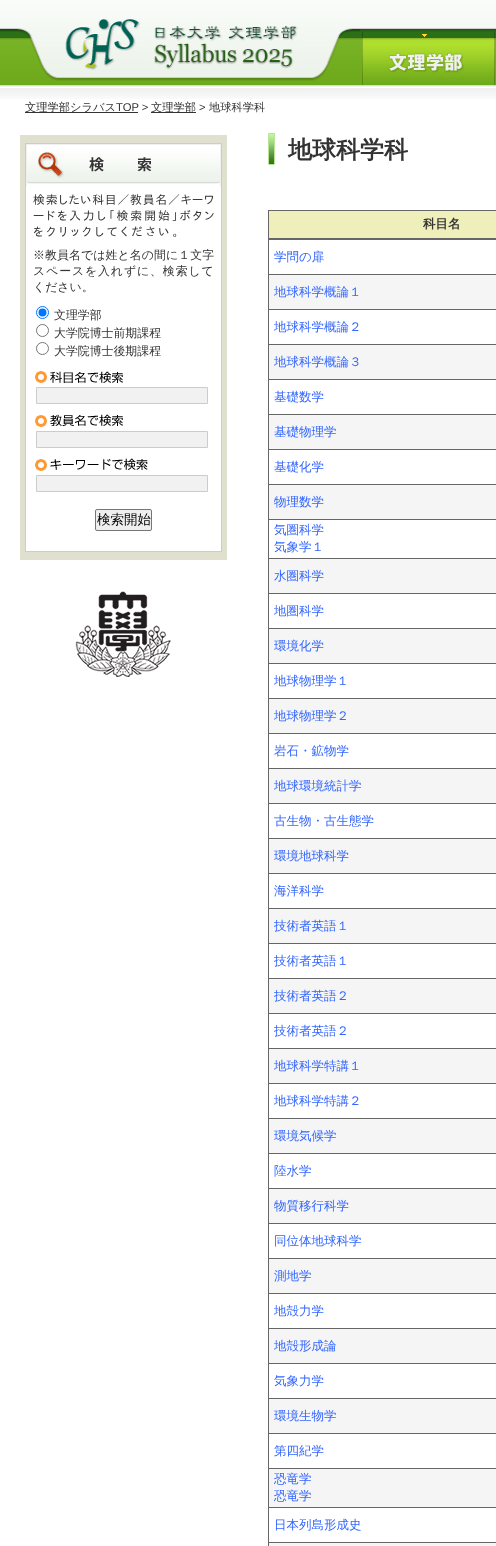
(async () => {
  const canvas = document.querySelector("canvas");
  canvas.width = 496;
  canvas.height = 1546;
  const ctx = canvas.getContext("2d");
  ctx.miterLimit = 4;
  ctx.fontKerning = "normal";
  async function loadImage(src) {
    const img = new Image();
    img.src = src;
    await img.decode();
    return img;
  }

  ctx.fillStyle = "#ffffff";
  ctx.fillRect(0, 0, 496, 1546);
  ctx.drawImage(await loadImage("img/1.png"), 0, 0, 496, 99);
  ctx.drawImage(await loadImage("img/2.png"), 0, 19, 360, 62);
  ctx.drawImage(await loadImage("img/3.png"), 362, 32, 133, 53);
  for (const [x, y, w, h, color] of [
    [25, 112, 113, 1, "#333333"],
    [151, 112, 45, 1, "#333333"],
    [20, 135, 207, 425, "#dfe0ce"],
    [26, 145, 195, 406, "#ffffff"],
  ]) {
    ctx.fillStyle = color;
    ctx.fillRect(x, y, w, h);
  }
  ctx.strokeStyle = "#cccccc";
  ctx.strokeRect(25.5, 143.5, 196, 408);
  for (const [x, y, w, h, color] of [
    [26, 144, 195, 1, "#f0f0f0"],
    [220, 144, 1, 42, "#f0f0f0"],
    [26, 144, 1, 42, "#f0f0f0"],
  ]) {
    ctx.fillStyle = color;
    ctx.fillRect(x, y, w, h);
  }
  ctx.drawImage(await loadImage("img/4.png"), 27, 151, 193, 33);
  ctx.beginPath();
  ctx.arc(42.5, 312.5, 6, 0, Math.PI * 2);
  ctx.strokeStyle = "#0075ff";
  ctx.stroke();
  ctx.fillStyle = "#0075ff";
  ctx.beginPath();
  ctx.arc(42.5, 312.5, 4, 0, Math.PI * 2);
  ctx.fill();
  ctx.beginPath();
  ctx.arc(42.5, 330.5, 6, 0, Math.PI * 2);
  ctx.strokeStyle = "#767676";
  ctx.stroke();
  ctx.beginPath();
  ctx.arc(42.5, 348.5, 6, 0, Math.PI * 2);
  ctx.stroke();
  ctx.drawImage(await loadImage("img/5.png"), 35, 371, 88, 12);
  ctx.fillStyle = "#f1f1f1";
  ctx.beginPath();
  ctx.rect(36.5, 387.5, 171, 16);
  ctx.fill();
  ctx.strokeStyle = "#cccccc";
  ctx.stroke();
  ctx.drawImage(await loadImage("img/6.png"), 35, 414, 88, 13);
  ctx.beginPath();
  ctx.rect(36.5, 431.5, 171, 16);
  ctx.fill();
  ctx.stroke();
  ctx.drawImage(await loadImage("img/7.png"), 35, 458, 113, 13);
  ctx.beginPath();
  ctx.rect(36.5, 475.5, 171, 16);
  ctx.fill();
  ctx.stroke();
  ctx.fillStyle = "#efefef";
  ctx.beginPath();
  ctx.roundRect(95.5, 509.5, 56, 21, 1.5);
  ctx.fill();
  ctx.strokeStyle = "#767676";
  ctx.stroke();
  ctx.drawImage(await loadImage("img/8.png"), 75, 591, 96, 86);
  ctx.drawImage(await loadImage("img/9.png"), 268, 133, 7, 32);
  for (const [x, y, w, h, color] of [
    [268, 210, 228, 1, "#666666"],
    [268, 210, 1, 1336, "#666666"],
    [269, 211, 227, 27, "#eeefbb"],
    [268, 238, 228, 2, "#666666"],
    [268, 274, 228, 1, "#666666"],
    [269, 275, 227, 34, "#f5f5f5"],
    [268, 309, 228, 1, "#666666"],
    [268, 344, 228, 1, "#666666"],
    [269, 345, 227, 34, "#f5f5f5"],
    [268, 379, 228, 1, "#666666"],
    [268, 414, 228, 1, "#666666"],
    [269, 415, 227, 34, "#f5f5f5"],
    [268, 449, 228, 1, "#666666"],
    [268, 484, 228, 1, "#666666"],
    [269, 485, 227, 34, "#f5f5f5"],
    [268, 519, 228, 1, "#666666"],
    [268, 558, 228, 1, "#666666"],
    [269, 559, 227, 34, "#f5f5f5"],
    [268, 593, 228, 1, "#666666"],
    [268, 628, 228, 1, "#666666"],
    [269, 629, 227, 34, "#f5f5f5"],
    [268, 663, 228, 1, "#666666"],
    [268, 698, 228, 1, "#666666"],
    [269, 699, 227, 34, "#f5f5f5"],
    [268, 733, 228, 1, "#666666"],
    [268, 768, 228, 1, "#666666"],
    [269, 769, 227, 34, "#f5f5f5"],
    [268, 803, 228, 1, "#666666"],
    [268, 838, 228, 1, "#666666"],
    [269, 839, 227, 34, "#f5f5f5"],
    [268, 873, 228, 1, "#666666"],
    [268, 908, 228, 1, "#666666"],
    [269, 909, 227, 34, "#f5f5f5"],
    [268, 943, 228, 1, "#666666"],
    [268, 978, 228, 1, "#666666"],
    [269, 979, 227, 34, "#f5f5f5"],
    [268, 1013, 228, 1, "#666666"],
    [268, 1048, 228, 1, "#666666"],
    [269, 1049, 227, 34, "#f5f5f5"],
    [268, 1083, 228, 1, "#666666"],
    [268, 1118, 228, 1, "#666666"],
    [269, 1119, 227, 34, "#f5f5f5"],
    [268, 1153, 228, 1, "#666666"],
    [268, 1188, 228, 1, "#666666"],
    [269, 1189, 227, 34, "#f5f5f5"],
    [268, 1223, 228, 1, "#666666"],
    [268, 1258, 228, 1, "#666666"],
    [269, 1259, 227, 34, "#f5f5f5"],
    [268, 1293, 228, 1, "#666666"],
    [268, 1328, 228, 1, "#666666"],
    [269, 1329, 227, 34, "#f5f5f5"],
    [268, 1363, 228, 1, "#666666"],
    [268, 1398, 228, 1, "#666666"],
    [269, 1399, 227, 34, "#f5f5f5"],
    [268, 1433, 228, 1, "#666666"],
    [268, 1468, 228, 1, "#666666"],
    [269, 1469, 227, 38, "#f5f5f5"],
    [268, 1507, 228, 1, "#666666"],
    [268, 1542, 228, 1, "#666666"],
    [269, 1543, 227, 3, "#f5f5f5"],
  ]) {
    ctx.fillStyle = color;
    ctx.fillRect(x, y, w, h);
  }
  ctx.font = "500 11.25px WenQuanYi Zen Hei";
  ctx.fillStyle = "#333333";
  ctx.fillText("文理学部シラバス", 25, 111);
  ctx.font = "11.25px Liberation Sans";
  ctx.fillText("TOP >", 116, 111);
  ctx.font = "500 11.25px WenQuanYi Zen Hei";
  ctx.fillText("文理学部", 151, 111);
  ctx.font = "11.25px Liberation Sans";
  ctx.fillText(">", 199, 111);
  ctx.font = "500 11.25px WenQuanYi Zen Hei";
  ctx.fillText("地球科学科", 209, 111);
  ctx.letterSpacing = "0.75px";
  ctx.font = "11.9px IPAPGothic";
  ctx.fillText("検索したい科目／教員名／キーワ", 33, 204);
  ctx.letterSpacing = "1.9px";
  ctx.fillText("ードを入力し「検索開始｣ボタン", 33, 220);
  ctx.letterSpacing = "3px";
  ctx.fillText("をクリックしてください。", 33, 236);
  ctx.letterSpacing = "0.1px";
  ctx.font = "500 11.9px WenQuanYi Zen Hei";
  ctx.fillText("※教員名では姓と名の間に１文字", 33, 259);
  ctx.letterSpacing = "0.9px";
  ctx.fillText("スペースを入れずに、検索して", 33, 275);
  ctx.letterSpacing = "0px";
  for (const [text, x, y] of [
    ["ください。", 33, 291],
    ["文理学部", 54, 319],
    ["大学院博士前期課程", 54, 337],
    ["大学院博士後期課程", 54, 355],
  ]) {
    ctx.fillText(text, x, y);
  }
  ctx.font = "500 13.5px WenQuanYi Zen Hei";
  ctx.fillStyle = "#000000";
  ctx.fillText("検索開始", 97, 524);
  ctx.font = "bold 24px WenQuanYi Zen Hei";
  ctx.fillStyle = "#333333";
  ctx.fillText("地球科学科", 288, 158);
  ctx.font = "bold 12.5px WenQuanYi Zen Hei";
  ctx.fillText("科目名", 423, 228);
  ctx.font = "500 12.5px WenQuanYi Zen Hei";
  ctx.fillStyle = "#3366ff";
  for (const [text, x, y] of [
    ["学問の扉", 274, 261],
    ["地球科学概論１", 274, 296],
    ["地球科学概論２", 274, 331],
    ["地球科学概論３", 274, 366],
    ["基礎数学", 274, 401],
    ["基礎物理学", 274, 436],
    ["基礎化学", 274, 471],
    ["物理数学", 274, 506],
    ["気圏科学", 274, 534],
    ["気象学１", 274, 551],
    ["水圏科学", 274, 580],
    ["地圏科学", 274, 615],
    ["環境化学", 274, 650],
    ["地球物理学１", 274, 685],
    ["地球物理学２", 274, 720],
    ["岩石・鉱物学", 274, 755],
    ["地球環境統計学", 274, 790],
    ["古生物・古生態学", 274, 825],
    ["環境地球科学", 274, 860],
    ["海洋科学", 274, 895],
    ["技術者英語１", 274, 930],
    ["技術者英語１", 274, 965],
    ["技術者英語２", 274, 1000],
    ["技術者英語２", 274, 1035],
    ["地球科学特講１", 274, 1070],
    ["地球科学特講２", 274, 1105],
    ["環境気候学", 274, 1140],
    ["陸水学", 274, 1175],
    ["物質移行科学", 274, 1210],
    ["同位体地球科学", 274, 1245],
    ["測地学", 274, 1280],
    ["地殻力学", 274, 1315],
    ["地殻形成論", 274, 1350],
    ["気象力学", 274, 1385],
    ["環境生物学", 274, 1420],
    ["第四紀学", 274, 1455],
    ["恐竜学", 274, 1483],
    ["恐竜学", 274, 1500],
    ["日本列島形成史", 274, 1529],
  ]) {
    ctx.fillText(text, x, y);
  }
})();
